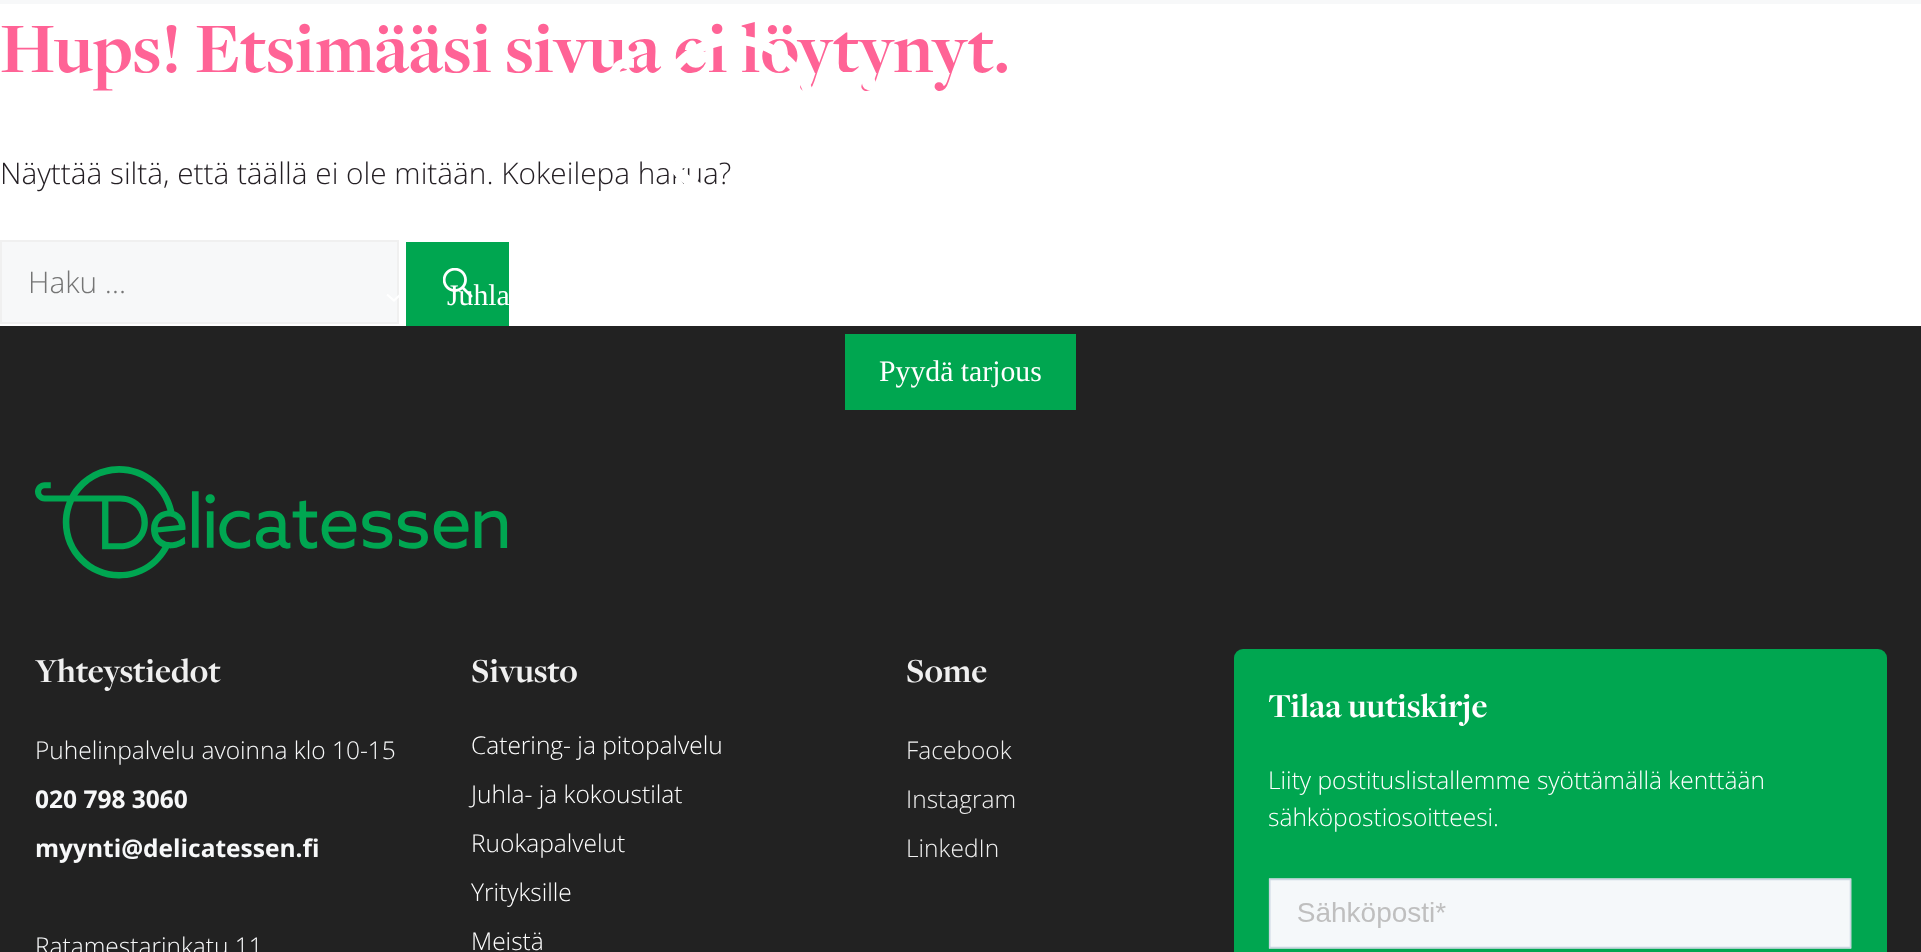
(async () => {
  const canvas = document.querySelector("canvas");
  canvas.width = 1921;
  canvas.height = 952;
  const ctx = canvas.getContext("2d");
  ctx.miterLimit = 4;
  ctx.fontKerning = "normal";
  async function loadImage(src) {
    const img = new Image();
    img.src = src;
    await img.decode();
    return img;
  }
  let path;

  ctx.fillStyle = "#f7f8f9";
  ctx.fillRect(0, 0, 1921, 952);
  ctx.fillStyle = "#ffffff";
  ctx.fillRect(0, 4, 1921, 322);
  ctx.fillStyle = "#f7f8f9";
  ctx.beginPath();
  ctx.rect(1, 241, 397, 82);
  ctx.fill();
  ctx.strokeStyle = "#f0f0f0";
  ctx.lineWidth = 2;
  ctx.stroke();
  ctx.fillStyle = "#00a650";
  ctx.fillRect(406, 242, 103, 84);
  ctx.drawImage(await loadImage("img/1.png"), 443, 268, 30, 30);
  path = new Path2D("M387 294.5L394 300.5L400.5 294.5");
  ctx.strokeStyle = "#ffffff";
  ctx.lineWidth = 2.2;
  ctx.stroke(path);
  ctx.fillStyle = "#222222";
  ctx.fillRect(0, 326, 1921, 626);
  ctx.fillStyle = "#00a650";
  ctx.fillRect(845, 334, 231, 76);
  ctx.drawImage(await loadImage("img/3.png"), 35, 466, 473, 113);
  ctx.beginPath();
  ctx.roundRect(1234, 649, 653, 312, 9);
  ctx.fill();
  ctx.drawImage(await loadImage("img/4.png"), 1268, 878, 584, 71);
  ctx.font = "bold 73.5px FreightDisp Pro";
  ctx.fillStyle = "#ff6396";
  ctx.fillText("Hups! Etsimääsi sivua ei löytynyt.", 0, 72);
  ctx.font = "300 29.75px Open Sans";
  ctx.fillStyle = "#231e23";
  ctx.fillText("Näyttää siltä, että täällä ei ole mitään. Kokeilepa hakua?", 0, 184);
  ctx.fillStyle = "#757575";
  ctx.fillText("Haku …", 28, 293);
  ctx.drawImage(await loadImage("img/2.png"), 611, 35, 265, 150);
  ctx.font = "29.75px Liberation Serif";
  ctx.fillStyle = "#ffffff";
  ctx.fillText("Juhla", 447, 305);
  ctx.fillText("Pyydä tarjous", 879, 381);
  ctx.font = "bold 35px FreightDisp Pro";
  ctx.fillStyle = "#f0f0f0";
  ctx.fillText("Yhteystiedot", 35, 682);
  ctx.font = "300 24.5px Open Sans";
  ctx.fillStyle = "#f7f8f9";
  ctx.fillText("Puhelinpalvelu avoinna klo 10-15", 35, 759);
  ctx.font = "bold 24.5px Open Sans";
  ctx.fillText("020 798 3060", 35, 808);
  ctx.fillText("myynti@delicatessen.fi", 35, 857);
  ctx.font = "300 24.5px Open Sans";
  ctx.fillText("Ratamestarinkatu 11", 35, 955);
  ctx.font = "bold 35px FreightDisp Pro";
  ctx.fillStyle = "#f0f0f0";
  ctx.fillText("Sivusto", 471, 682);
  ctx.font = "300 24.5px Open Sans";
  ctx.fillStyle = "#ffffff";
  for (const [text, x, y] of [
    ["Catering- ja pitopalvelu", 471, 754],
    ["Juhla- ja kokoustilat", 471, 803],
    ["Ruokapalvelut", 471, 852],
    ["Yrityksille", 471, 901],
    ["Meistä", 471, 950],
  ]) {
    ctx.fillText(text, x, y);
  }
  ctx.font = "bold 35px FreightDisp Pro";
  ctx.fillStyle = "#f0f0f0";
  ctx.fillText("Some", 906, 682);
  ctx.font = "300 24.5px Open Sans";
  for (const [text, x, y] of [
    ["Facebook", 906, 759],
    ["Instagram", 906, 808],
    ["LinkedIn", 906, 857],
  ]) {
    ctx.fillText(text, x, y);
  }
  ctx.font = "bold 35px FreightDisp Pro";
  ctx.fillStyle = "#ffffff";
  ctx.fillText("Tilaa uutiskirje", 1268, 717);
  ctx.font = "300 24.5px Open Sans";
  ctx.fillText("Liity postituslistallemme syöttämällä kenttään", 1268, 789);
  ctx.fillText("sähköpostiosoitteesi.", 1268, 826);
})();
